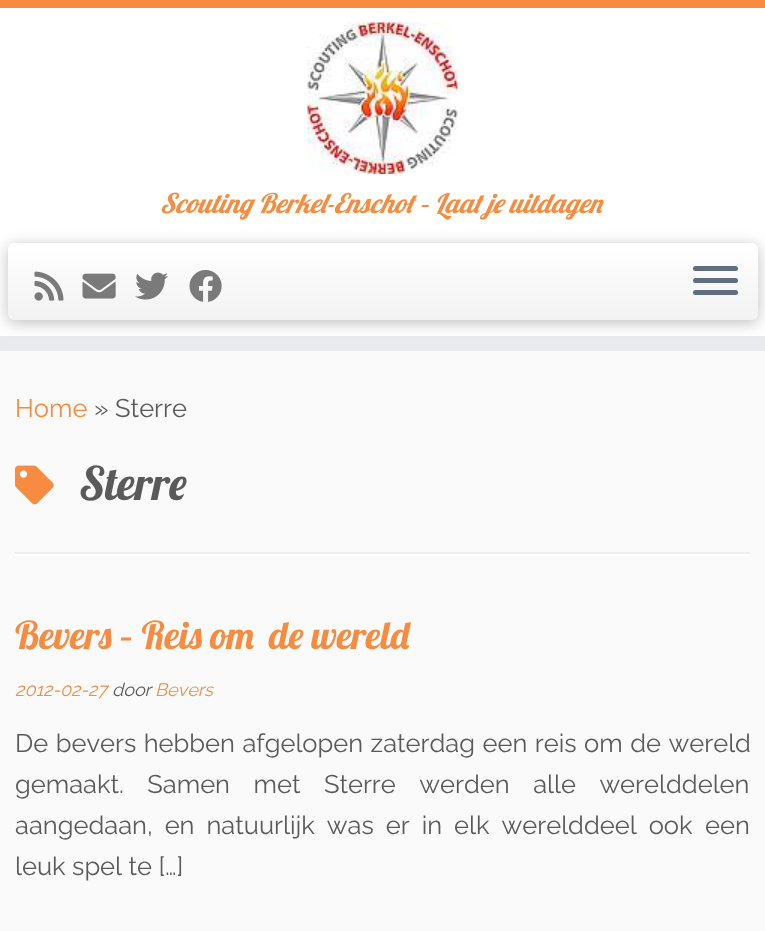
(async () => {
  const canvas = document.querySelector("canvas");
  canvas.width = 765;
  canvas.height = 931;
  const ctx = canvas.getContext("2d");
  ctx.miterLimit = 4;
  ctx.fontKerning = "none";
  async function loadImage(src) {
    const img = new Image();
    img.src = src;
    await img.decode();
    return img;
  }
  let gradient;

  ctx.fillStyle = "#fafafa";
  ctx.fillRect(0, 0, 765, 931);
  for (const [x, y, w, h, color] of [
    [0, 8, 765, 328, "#ffffff"],
    [0, 0, 765, 8, "#f78c40"],
    [0, 336, 765, 15, "#e9eaee"],
  ]) {
    ctx.fillStyle = color;
    ctx.fillRect(x, y, w, h);
  }
  ctx.drawImage(await loadImage("img/1.png"), 307, 22, 151, 152);
  ctx.fillStyle = "rgba(0, 0, 0, 0.25)";
  ctx.filter = "blur(7.5px)";
  ctx.beginPath();
  ctx.roundRect(8, 246, 750, 77, 6);
  ctx.fill();
  ctx.filter = "none";
  gradient = ctx.createLinearGradient(383, 243, 383, 320);
  gradient.addColorStop(0, "#ffffff");
  gradient.addColorStop(1, "#f2f2f2");
  ctx.fillStyle = gradient;
  ctx.beginPath();
  ctx.roundRect(8, 243, 750, 77, 6);
  ctx.fill();
  ctx.drawImage(await loadImage("img/2.png"), 34, 271, 30, 30);
  ctx.drawImage(await loadImage("img/3.png"), 82, 273, 34, 26);
  ctx.drawImage(await loadImage("img/4.png"), 135, 272, 33, 28);
  ctx.drawImage(await loadImage("img/5.png"), 189, 270, 33, 32);
  ctx.fillStyle = "#5f6f81";
  ctx.beginPath();
  ctx.roundRect(693, 266, 45, 5, 2.5);
  ctx.fill();
  ctx.beginPath();
  ctx.roundRect(693, 278, 45, 5, 2.5);
  ctx.fill();
  ctx.beginPath();
  ctx.roundRect(693, 290, 45, 5, 2.5);
  ctx.fill();
  ctx.drawImage(await loadImage("img/6.png"), 15, 465, 39, 40);
  ctx.fillStyle = "#eeeeee";
  ctx.fillRect(15, 552, 735, 2);
  ctx.fillStyle = "#ffffff";
  ctx.fillRect(15, 554, 735, 2);
  ctx.font = "italic 27px Lobster";
  ctx.fillStyle = "#f78c40";
  ctx.fillText("Scouting Berkel-Enschot – Laat je uitdagen", 160, 213);
  ctx.font = "100 25.5px Raleway";
  ctx.fillText("Home", 15, 417);
  ctx.fillStyle = "#5a5a5a";
  ctx.fillText("» Sterre", 94, 417);
  ctx.font = "46px Lobster";
  ctx.fillText("Sterre", 79, 500);
  ctx.font = "38.4px Lobster";
  ctx.fillStyle = "#f78c40";
  ctx.fillText("Bevers – Reis om", 15, 649);
  ctx.fillText("de wereld", 269, 649);
  ctx.font = "italic 100 18px Raleway";
  ctx.fillText("2012-02-27", 15, 696);
  ctx.fillStyle = "#5a5a5a";
  ctx.fillText("door", 112, 696);
  ctx.fillStyle = "#f78c40";
  ctx.fillText("Bevers", 155, 696);
  ctx.wordSpacing = "1px";
  ctx.font = "100 25.5px Raleway";
  ctx.fillStyle = "#5a5a5a";
  ctx.fillText("De bevers hebben afgelopen zaterdag een reis om de wereld", 15, 752);
  ctx.wordSpacing = "17px";
  ctx.fillText("gemaakt. Samen met Sterre werden alle werelddelen", 15, 793);
  ctx.wordSpacing = "5.5px";
  ctx.fillText("aangedaan, en natuurlijk was er in elk werelddeel ook", 15, 834);
  ctx.fillText("een", 705, 834);
  ctx.wordSpacing = "0px";
  ctx.fillText("leuk spel te […]", 15, 875);
})();
